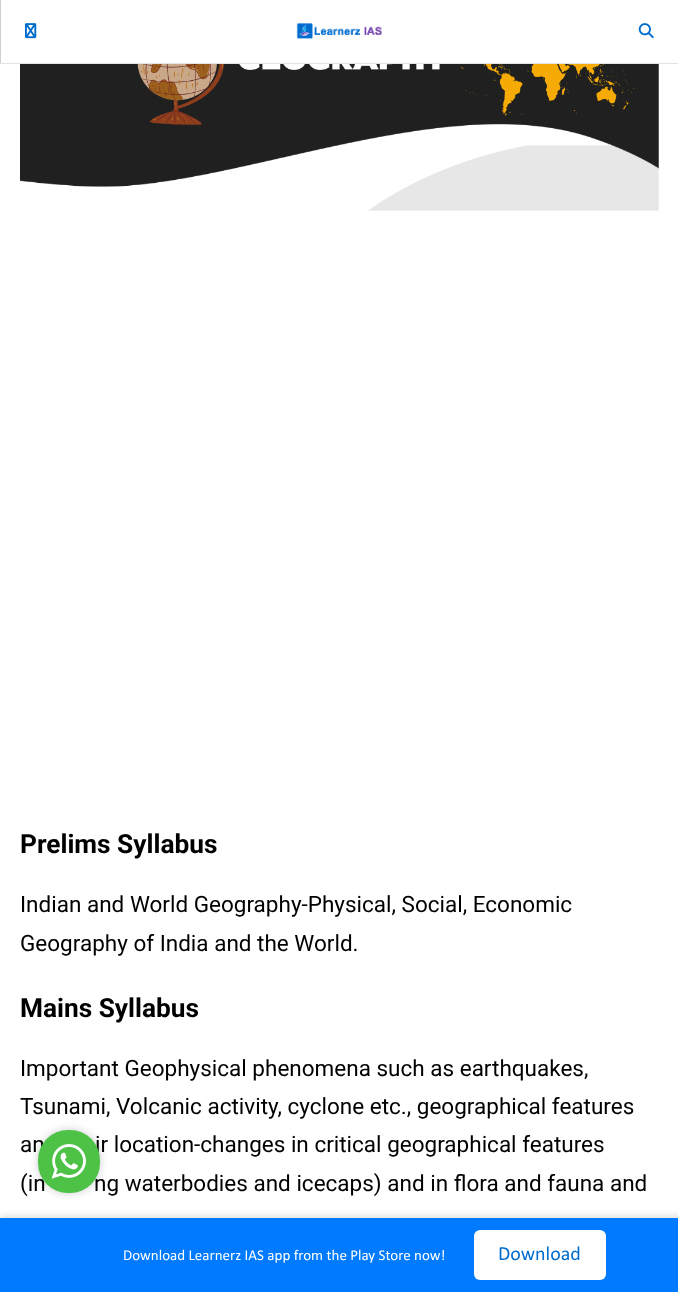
(async () => {
  const canvas = document.querySelector("canvas");
  canvas.width = 678;
  canvas.height = 1292;
  const ctx = canvas.getContext("2d");
  ctx.miterLimit = 4;
  ctx.fontKerning = "normal";
  async function loadImage(src) {
    const img = new Image();
    img.src = src;
    await img.decode();
    return img;
  }

  ctx.fillStyle = "#ffffff";
  ctx.fillRect(0, 0, 678, 1292);
  ctx.fillStyle = "#e4e4e4";
  ctx.fillRect(0, 63, 678, 1);
  ctx.fillStyle = "#cfcfcf";
  ctx.fillRect(0, 0, 1, 63);
  ctx.drawImage(await loadImage("img/1.png"), 296, 23, 87, 16);
  ctx.drawImage(await loadImage("img/2.png"), 25, 23, 12, 16);
  ctx.drawImage(await loadImage("img/3.png"), 638, 23, 16, 16);
  ctx.drawImage(await loadImage("img/4.png"), 20, 64, 639, 147);
  ctx.fillStyle = "rgba(0, 0, 0, 0.1)";
  ctx.filter = "blur(3px)";
  ctx.beginPath();
  ctx.rect(0, 1215, 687, 75);
  ctx.fill();
  ctx.filter = "none";
  ctx.fillStyle = "#007bff";
  ctx.fillRect(0, 1218, 678, 74);
  ctx.fillStyle = "#ffffff";
  ctx.beginPath();
  ctx.roundRect(474, 1230, 132, 50, 6);
  ctx.fill();
  ctx.fillStyle = "rgba(0, 0, 0, 0.2)";
  ctx.filter = "blur(4.5px)";
  ctx.beginPath();
  ctx.roundRect(38, 1130, 62, 63, 30);
  ctx.fill();
  ctx.filter = "none";
  ctx.font = "bold 26.25px Roboto";
  ctx.fillStyle = "#000000";
  ctx.fillText("Prelims Syllabus", 20, 853);
  ctx.font = "22.5px Roboto";
  ctx.fillText("Indian and World Geography-Physical, Social, Economic", 20, 912);
  ctx.fillText("Geography of India and the World.", 20, 951);
  ctx.font = "bold 26.25px Roboto";
  ctx.fillText("Mains Syllabus", 20, 1017);
  ctx.font = "22.5px Roboto";
  for (const [text, x, y] of [
    ["Important Geophysical phenomena such as earthquakes,", 20, 1076],
    ["Tsunami, Volcanic activity, cyclone etc., geographical features", 20, 1114],
    ["an", 20, 1152],
    ["ir location-changes in critical geographical features", 95, 1152],
    ["(in", 20, 1191],
    ["ng waterbodies and icecaps) and in flora and fauna and", 94, 1191],
  ]) {
    ctx.fillText(text, x, y);
  }
  ctx.font = "15px Calibri";
  ctx.fillStyle = "#ffffff";
  ctx.fillText("Download Learnerz IAS app from the Play Store now!", 123, 1260);
  ctx.font = "20px Calibri";
  ctx.fillStyle = "#006dce";
  ctx.fillText("Download", 498, 1260);
  ctx.fillStyle = "#4dc247";
  ctx.beginPath();
  ctx.roundRect(38, 1130, 62, 63, 30);
  ctx.fill();
  ctx.drawImage(await loadImage("img/5.png"), 51, 1144, 35, 35);
})();
